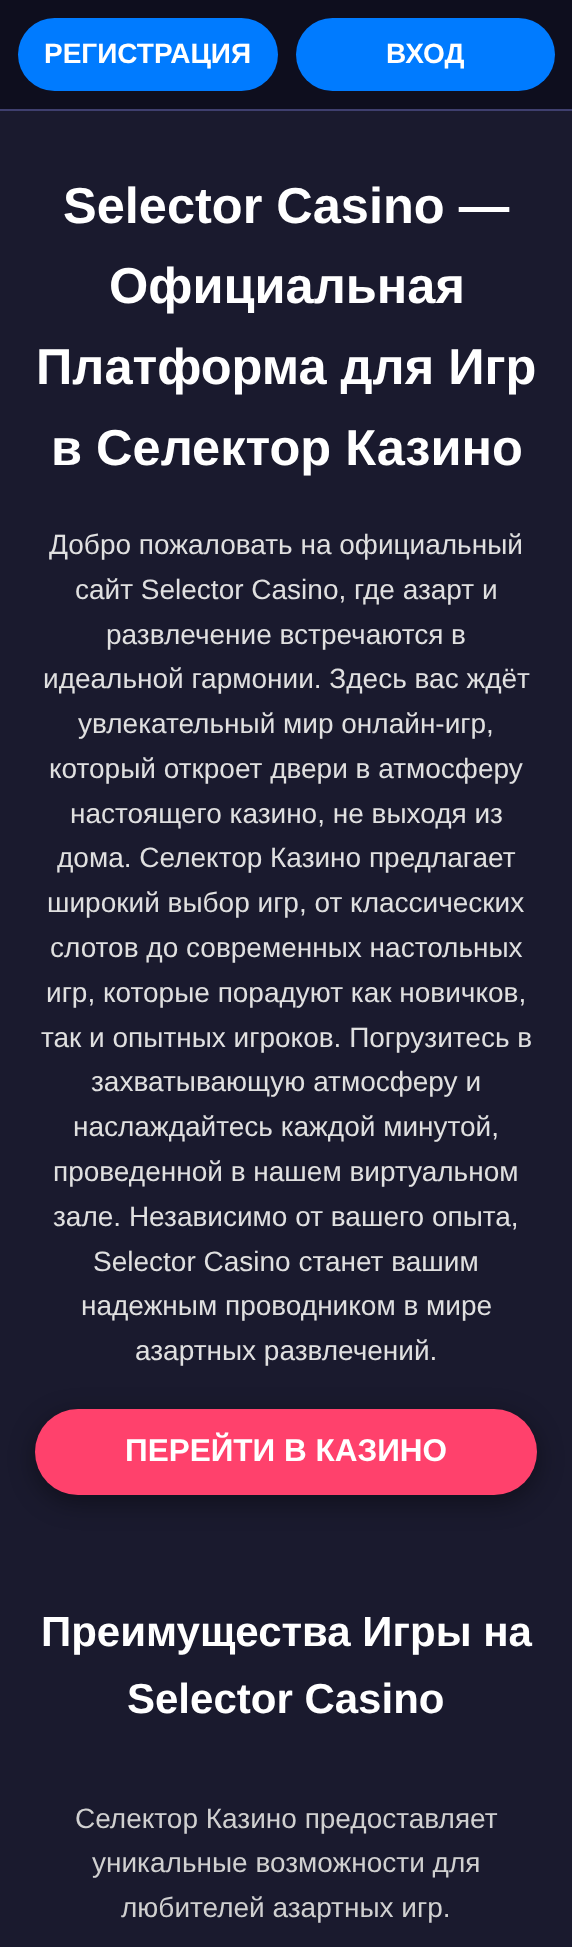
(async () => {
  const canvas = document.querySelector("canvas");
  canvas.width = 572;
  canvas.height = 1947;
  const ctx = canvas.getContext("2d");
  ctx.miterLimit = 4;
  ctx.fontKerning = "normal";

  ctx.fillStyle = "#1a1a2e";
  ctx.fillRect(0, 0, 572, 1947);
  ctx.fillStyle = "#0e0e1e";
  ctx.fillRect(0, 0, 572, 109);
  ctx.fillStyle = "#3f3f6e";
  ctx.fillRect(0, 109, 572, 2);
  ctx.fillStyle = "#007bff";
  ctx.beginPath();
  ctx.roundRect(18, 18, 260, 73, 36.5);
  ctx.fill();
  ctx.beginPath();
  ctx.roundRect(296, 18, 259, 73, 36.5);
  ctx.fill();
  ctx.fillStyle = "rgba(0, 0, 0, 0.4)";
  ctx.filter = "blur(13px)";
  ctx.beginPath();
  ctx.roundRect(35, 1416, 502, 86, 43);
  ctx.fill();
  ctx.filter = "none";
  ctx.fillStyle = "#ff416c";
  ctx.beginPath();
  ctx.roundRect(35, 1409, 502, 86, 43);
  ctx.fill();
  ctx.font = "bold 28px Liberation Sans";
  ctx.fillStyle = "#ffffff";
  ctx.fillText("РЕГИСТРАЦИЯ", 44, 63);
  ctx.fillText("ВХОД", 386, 63);
  ctx.font = "bold 50.5px Liberation Sans";
  for (const [text, x, y] of [
    ["Selector Casino —", 63, 223],
    ["Официальная", 109, 303],
    ["Платформа для Игр", 36, 384],
    ["в Селектор Казино", 51, 465],
  ]) {
    ctx.fillText(text, x, y);
  }
  ctx.font = "28px Liberation Sans";
  ctx.fillStyle = "#e0e0e0";
  for (const [text, x, y] of [
    ["Добро пожаловать на официальный", 49, 554],
    ["сайт Selector Casino, где азарт и", 75, 599],
    ["развлечение встречаются в", 106, 644],
    ["идеальной гармонии. Здесь вас ждёт", 43, 688],
    ["увлекательный мир онлайн-игр,", 78, 733],
    ["который откроет двери в атмосферу", 49, 778],
    ["настоящего казино, не выходя из", 70, 823],
    ["дома. Селектор Казино предлагает", 57, 867],
    ["широкий выбор игр, от классических", 47, 912],
    ["слотов до современных настольных", 50, 957],
    ["игр, которые порадуют как новичков,", 46, 1002],
    ["так и опытных игроков. Погрузитесь в", 41, 1047],
    ["захватывающую атмосферу и", 91, 1091],
    ["наслаждайтесь каждой минутой,", 73, 1136],
    ["проведенной в нашем виртуальном", 53, 1181],
    ["зале. Независимо от вашего опыта,", 53, 1226],
    ["Selector Casino станет вашим", 93, 1271],
    ["надежным проводником в мире", 81, 1315],
    ["азартных развлечений.", 135, 1360],
  ]) {
    ctx.fillText(text, x, y);
  }
  ctx.font = "bold 31.5px Liberation Sans";
  ctx.fillStyle = "#ffffff";
  ctx.fillText("ПЕРЕЙТИ В КАЗИНО", 125, 1461);
  ctx.font = "bold 42px Liberation Sans";
  ctx.fillText("Преимущества Игры на", 41, 1646);
  ctx.fillText("Selector Casino", 127, 1713);
  ctx.font = "28px Liberation Sans";
  ctx.fillStyle = "#d0d0d0";
  for (const [text, x, y] of [
    ["Селектор Казино предоставляет", 75, 1828],
    ["уникальные возможности для", 92, 1872],
    ["любителей азартных игр.", 121, 1917],
  ]) {
    ctx.fillText(text, x, y);
  }
})();
